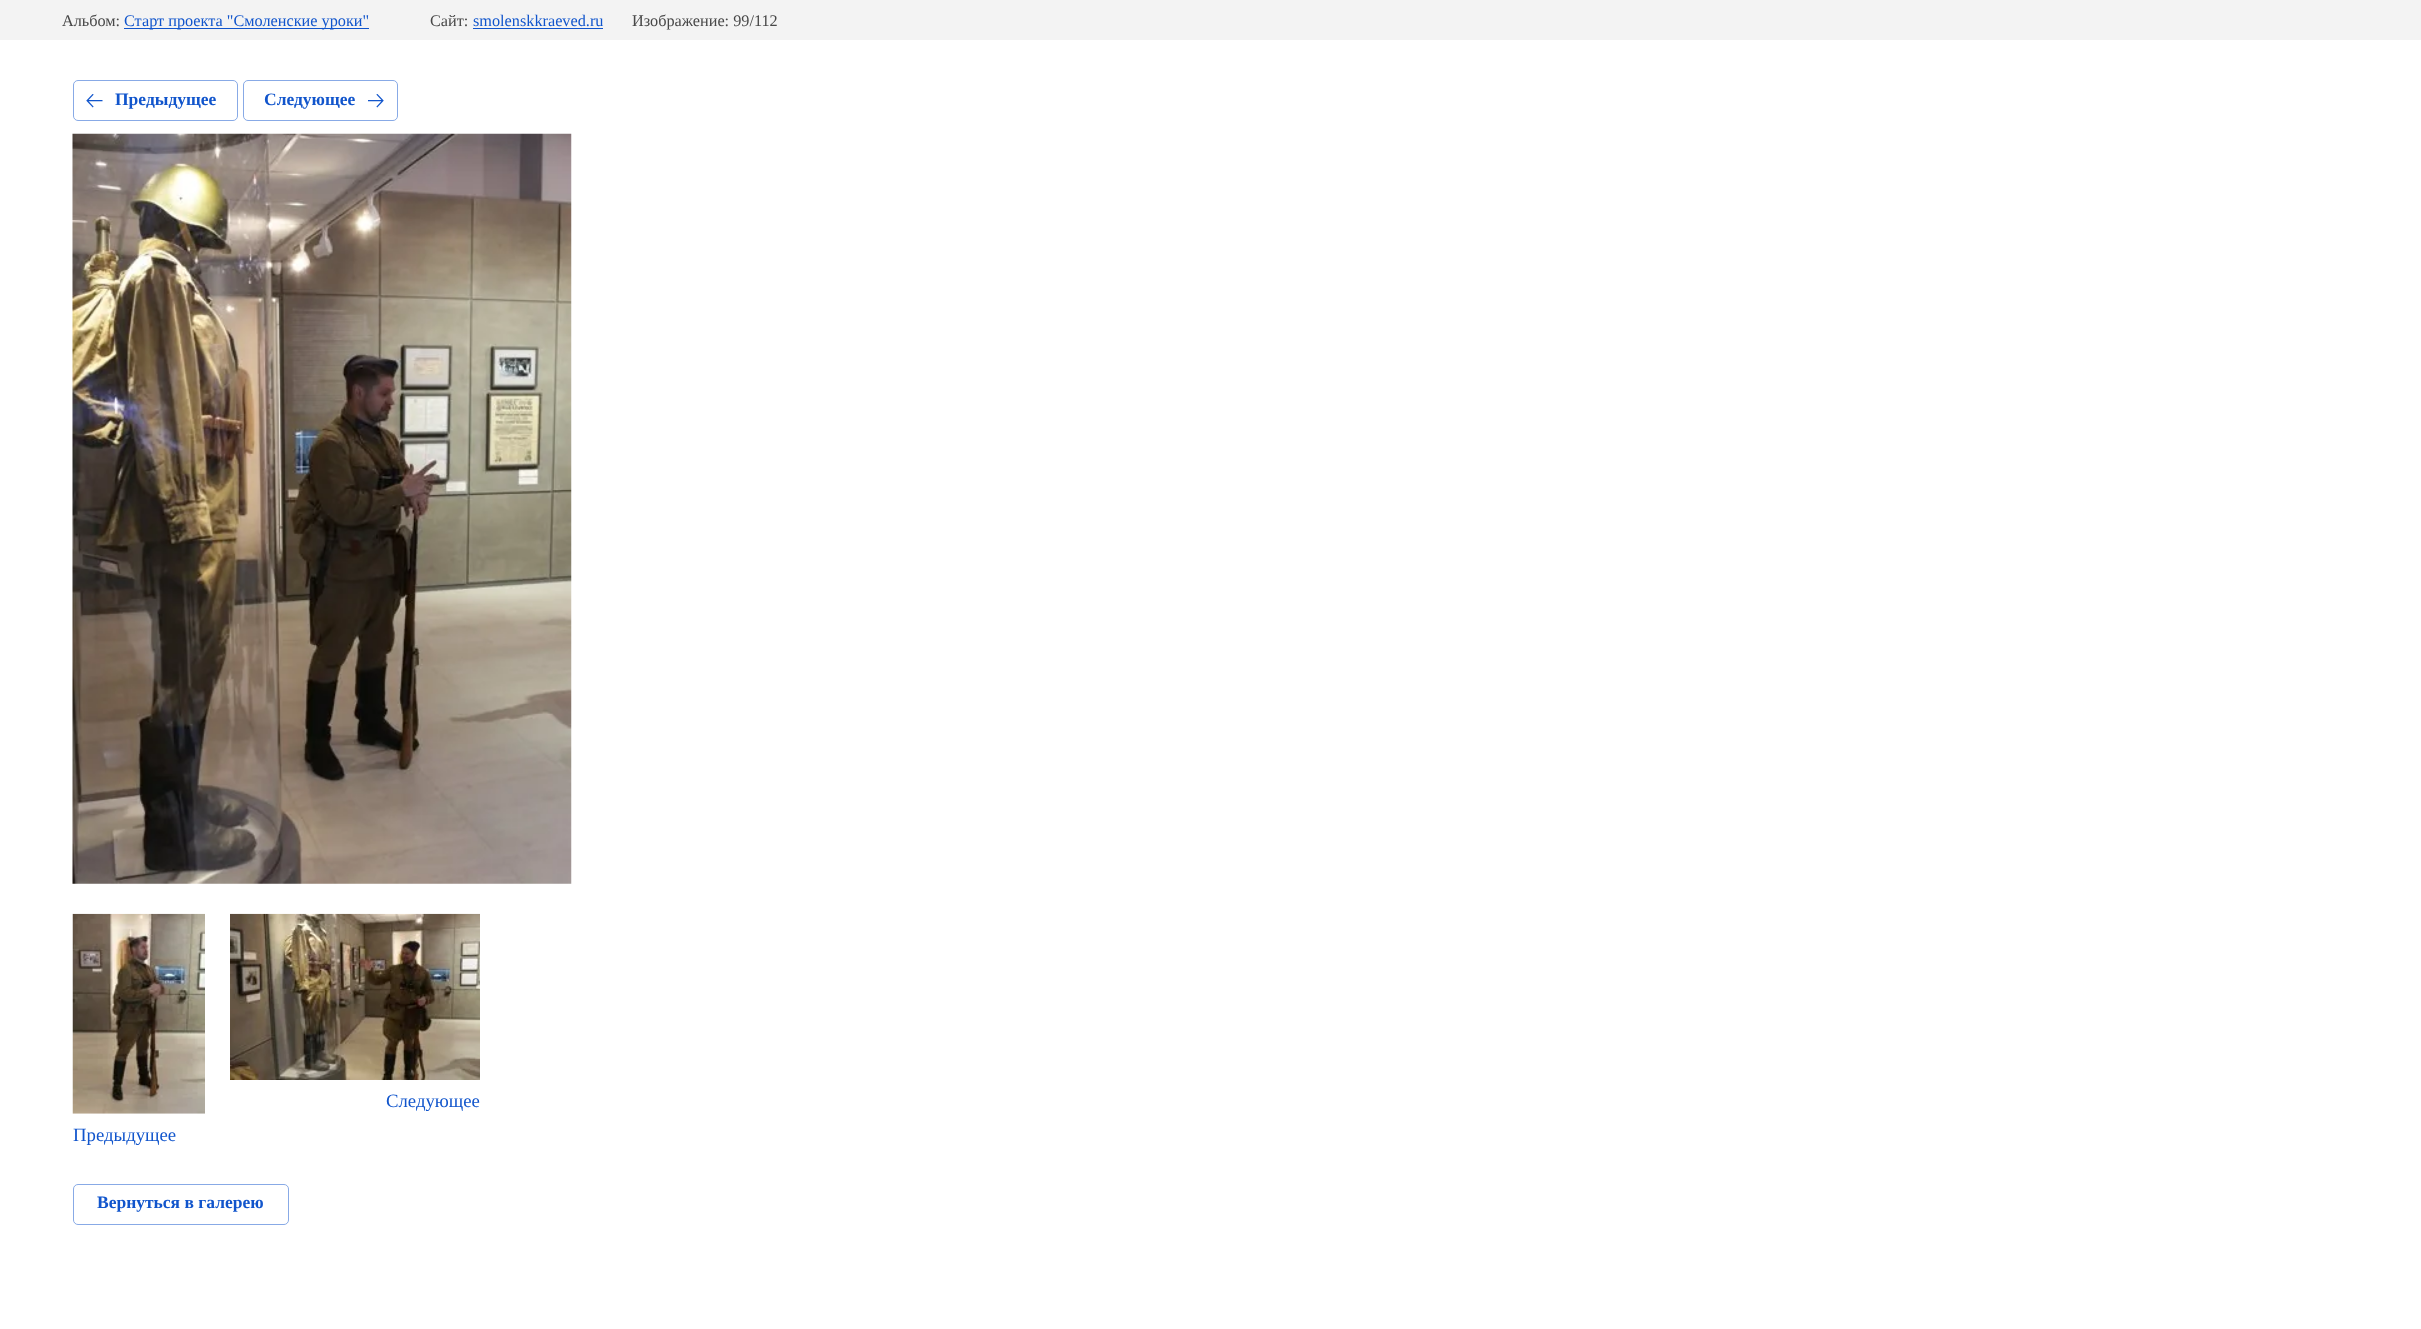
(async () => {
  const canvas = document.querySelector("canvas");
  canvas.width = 2421;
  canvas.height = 1329;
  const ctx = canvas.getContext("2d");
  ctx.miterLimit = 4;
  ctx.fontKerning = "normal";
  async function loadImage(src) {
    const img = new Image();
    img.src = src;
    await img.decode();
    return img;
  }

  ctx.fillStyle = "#ffffff";
  ctx.fillRect(0, 0, 2421, 1329);
  for (const [x, y, w, h, color] of [
    [0, 0, 2421, 40, "#f3f3f3"],
    [124, 28, 245, 1, "#1155cc"],
    [473, 28, 130, 1, "#1155cc"],
  ]) {
    ctx.fillStyle = color;
    ctx.fillRect(x, y, w, h);
  }
  ctx.beginPath();
  ctx.roundRect(73.5, 80.5, 164, 40, 4.5);
  ctx.strokeStyle = "#88aae6";
  ctx.stroke();
  ctx.drawImage(await loadImage("img/1.png"), 86, 94, 17, 14);
  ctx.beginPath();
  ctx.roundRect(243.5, 80.5, 154, 40, 4.5);
  ctx.stroke();
  ctx.drawImage(await loadImage("img/2.png"), 368, 94, 16, 14);
  ctx.drawImage(await loadImage("img/3.png"), 72, 133, 500, 751);
  ctx.drawImage(await loadImage("img/4.png"), 230, 913, 250, 167);
  ctx.drawImage(await loadImage("img/5.png"), 72, 913, 133, 201);
  ctx.beginPath();
  ctx.roundRect(73.5, 1184.5, 215, 40, 4.5);
  ctx.stroke();
  ctx.font = "16.25px Liberation Serif";
  ctx.fillStyle = "#484848";
  ctx.fillText("Альбом:", 62, 26);
  ctx.fillStyle = "#1155cc";
  ctx.fillText("Старт проекта \"Смоленские уроки\"", 124, 26);
  ctx.fillStyle = "#484848";
  ctx.fillText("Сайт:", 430, 26);
  ctx.fillStyle = "#1155cc";
  ctx.fillText("smolenskkraeved.ru", 473, 26);
  ctx.fillStyle = "#484848";
  ctx.fillText("Изображение: 99/112", 632, 26);
  ctx.font = "bold 17.5px Liberation Serif";
  ctx.fillStyle = "#1155cc";
  ctx.fillText("Предыдущее", 115, 105);
  ctx.fillText("Следующее", 264, 105);
  ctx.font = "18.75px Liberation Serif";
  ctx.fillText("Следующее", 386, 1107);
  ctx.fillText("Предыдущее", 73, 1141);
  ctx.font = "bold 17.5px Liberation Serif";
  ctx.fillText("Вернуться в галерею", 97, 1208);
})();
